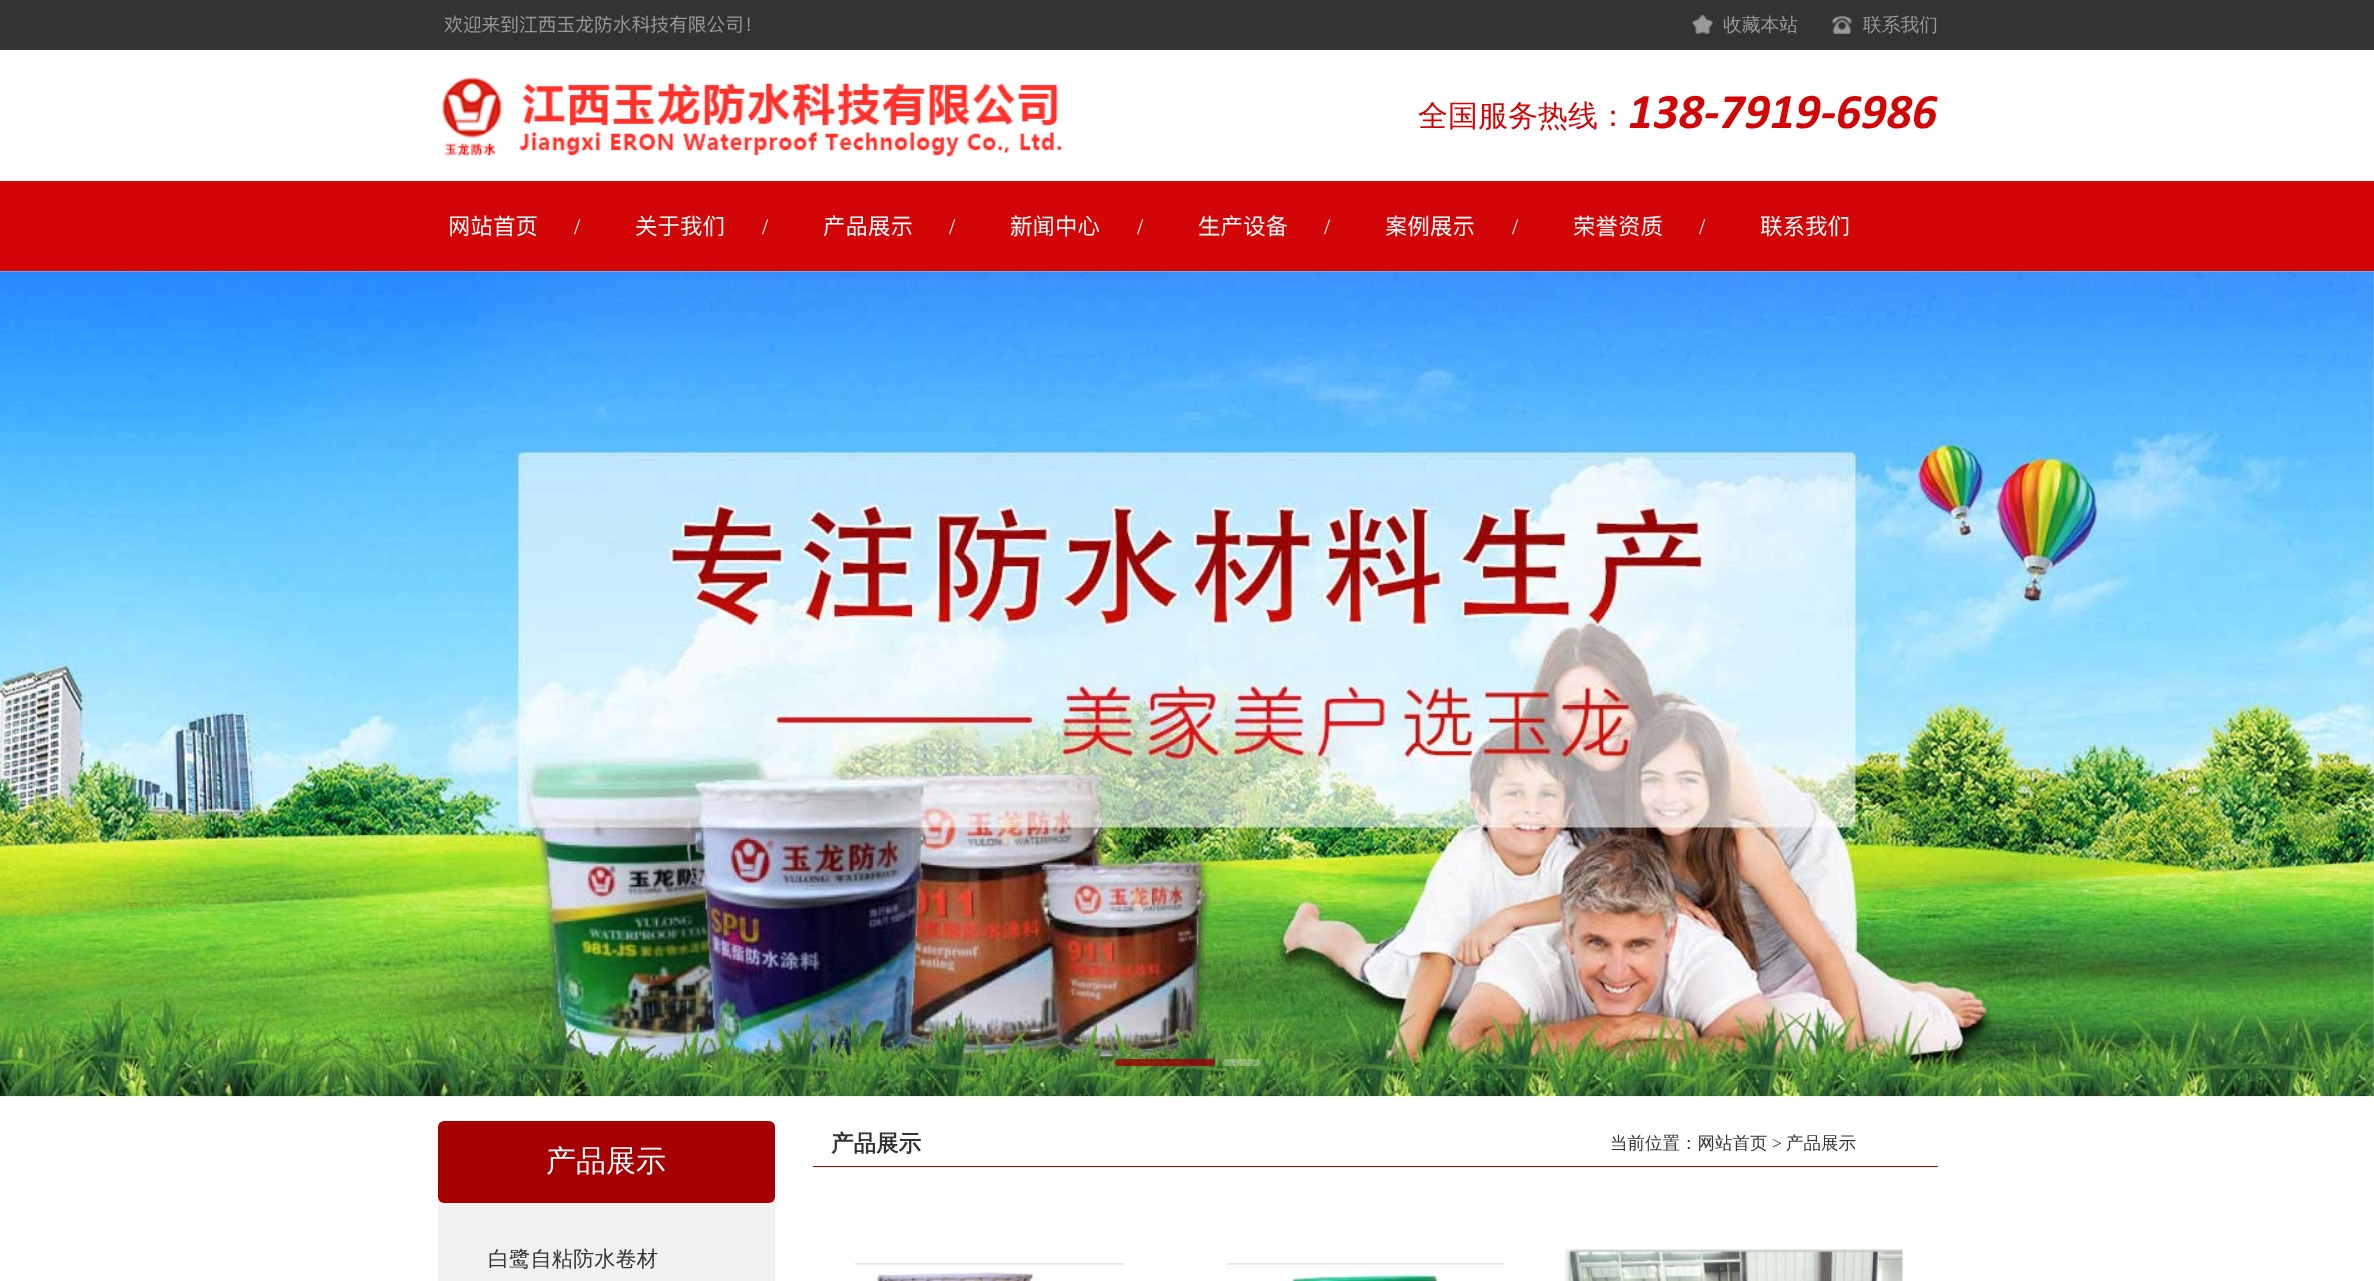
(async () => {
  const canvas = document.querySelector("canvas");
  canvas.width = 2374;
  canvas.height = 1281;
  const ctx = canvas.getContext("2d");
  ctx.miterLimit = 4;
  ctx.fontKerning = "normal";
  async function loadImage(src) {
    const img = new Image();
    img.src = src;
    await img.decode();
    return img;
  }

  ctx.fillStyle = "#ffffff";
  ctx.fillRect(0, 0, 2374, 1281);
  ctx.fillStyle = "#333335";
  ctx.fillRect(0, 0, 2374, 50);
  ctx.drawImage(await loadImage("img/1.png"), 1692, 14, 21, 20);
  ctx.drawImage(await loadImage("img/2.png"), 1832, 16, 20, 18);
  ctx.drawImage(await loadImage("img/3.png"), 442, 77, 620, 80);
  ctx.fillStyle = "#d20507";
  ctx.fillRect(0, 181, 2374, 90);
  ctx.fillStyle = "#cccccc";
  ctx.fillRect(0, 271, 2374, 825);
  ctx.drawImage(await loadImage("img/4.png"), 0, 271, 2374, 826);
  ctx.fillStyle = "rgba(152, 3, 5, 0.8)";
  ctx.beginPath();
  ctx.roundRect(1115, 1059, 100, 7, 3.5);
  ctx.fill();
  ctx.fillStyle = "rgba(255, 255, 255, 0.3)";
  ctx.beginPath();
  ctx.roundRect(1223, 1059, 37, 7, 3.5);
  ctx.fill();
  ctx.fillStyle = "#f1f1f1";
  ctx.beginPath();
  ctx.roundRect(438, 1121, 337, 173, 13);
  ctx.fill();
  ctx.fillStyle = "#a60002";
  ctx.beginPath();
  ctx.roundRect(438, 1121, 337, 82, 6);
  ctx.fill();
  ctx.fillRect(813, 1166, 1125, 1);
  ctx.drawImage(await loadImage("img/5.png"), 854, 1263, 271, 18);
  ctx.drawImage(await loadImage("img/6.png"), 1226, 1263, 278, 18);
  ctx.drawImage(await loadImage("img/7.png"), 1565, 1249, 338, 32);
  ctx.font = "18.75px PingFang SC";
  ctx.fillStyle = "#99999a";
  ctx.fillText("欢迎来到江西玉龙防水科技有限公司！", 444, 31);
  ctx.font = "500 18.75px WenQuanYi Zen Hei";
  ctx.fillText("收藏本站", 1723, 31);
  ctx.fillText("联系我们", 1863, 31);
  ctx.font = "500 30px WenQuanYi Zen Hei";
  ctx.fillStyle = "#d20507";
  ctx.fillText("全国服务热线：", 1418, 126);
  ctx.font = "italic bold 50px Calibri";
  ctx.fillText("138-7919-6986", 1628, 128);
  ctx.font = "22.5px PingFang SC";
  ctx.fillStyle = "#ffffff";
  ctx.fillText("网站首页", 448, 234);
  ctx.font = "22.5px Liberation Serif";
  ctx.fillText("/", 574, 234);
  ctx.font = "22.5px PingFang SC";
  ctx.fillText("关于我们", 635, 234);
  ctx.font = "22.5px Liberation Serif";
  ctx.fillText("/", 762, 234);
  ctx.font = "22.5px PingFang SC";
  ctx.fillText("产品展示", 823, 234);
  ctx.font = "22.5px Liberation Serif";
  ctx.fillText("/", 949, 234);
  ctx.font = "22.5px PingFang SC";
  ctx.fillText("新闻中心", 1010, 234);
  ctx.font = "22.5px Liberation Serif";
  ctx.fillText("/", 1137, 234);
  ctx.font = "22.5px PingFang SC";
  ctx.fillText("生产设备", 1198, 234);
  ctx.font = "22.5px Liberation Serif";
  ctx.fillText("/", 1324, 234);
  ctx.font = "22.5px PingFang SC";
  ctx.fillText("案例展示", 1385, 234);
  ctx.font = "22.5px Liberation Serif";
  ctx.fillText("/", 1512, 234);
  ctx.font = "22.5px PingFang SC";
  ctx.fillText("荣誉资质", 1573, 234);
  ctx.font = "22.5px Liberation Serif";
  ctx.fillText("/", 1699, 234);
  ctx.font = "22.5px PingFang SC";
  ctx.fillText("联系我们", 1760, 234);
  ctx.font = "500 30px WenQuanYi Zen Hei";
  ctx.fillText("产品展示", 546, 1171);
  ctx.font = "500 21.25px WenQuanYi Zen Hei";
  ctx.fillStyle = "#333333";
  ctx.fillText("白鹭自粘防水卷材", 488, 1266);
  ctx.font = "bold 22.5px WenQuanYi Zen Hei";
  ctx.fillText("产品展示", 831, 1151);
  ctx.font = "500 17.5px WenQuanYi Zen Hei";
  ctx.fillText("当前位置：网站首页", 1610, 1149);
  ctx.font = "17.5px Liberation Serif";
  ctx.fillText(">", 1772, 1149);
  ctx.font = "500 17.5px WenQuanYi Zen Hei";
  ctx.fillText("产品展示", 1786, 1149);
})();
